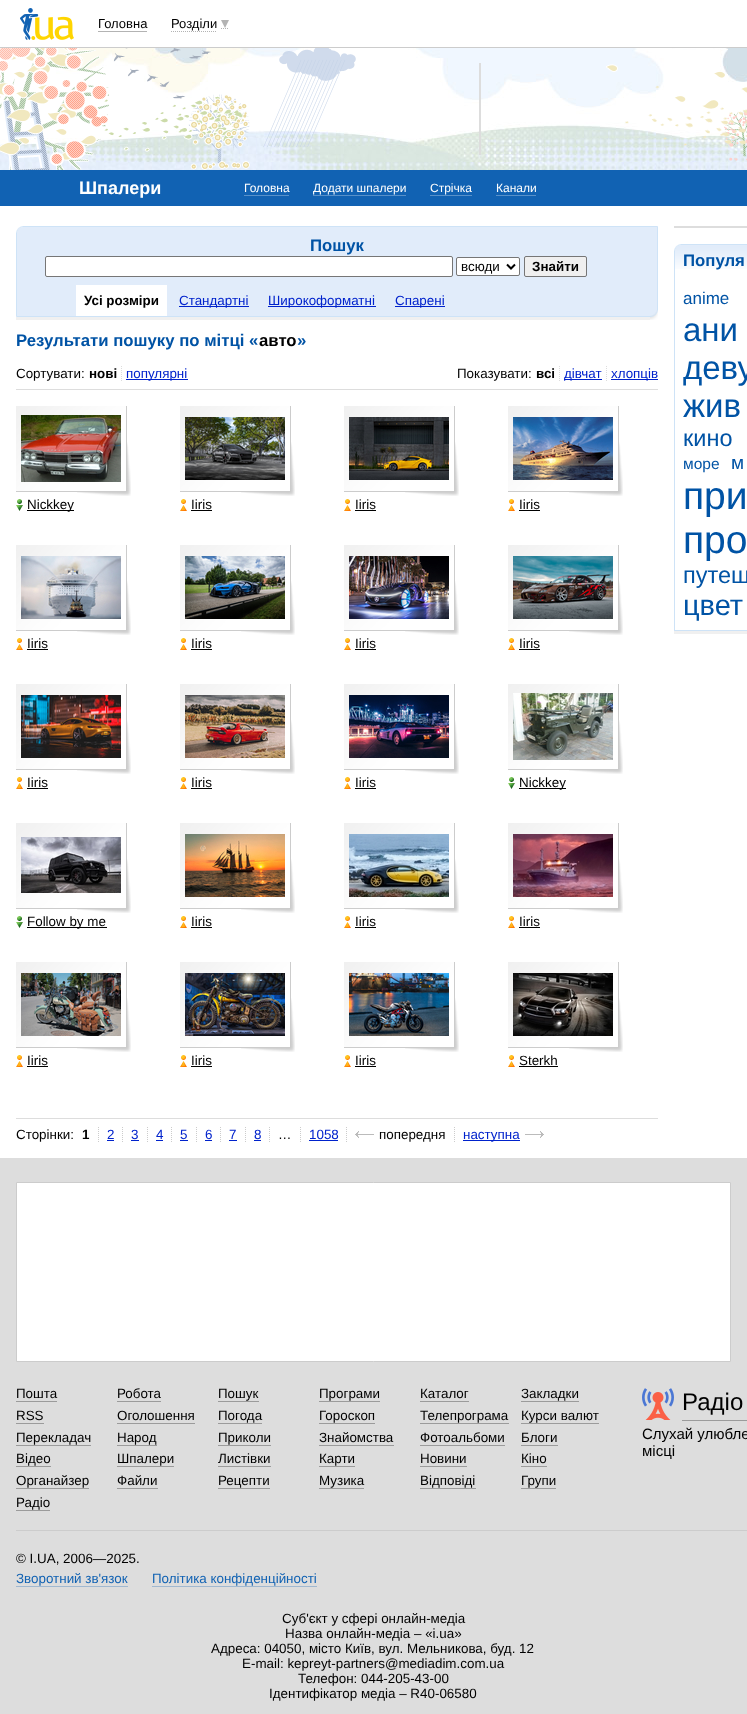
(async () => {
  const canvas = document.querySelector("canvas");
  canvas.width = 747;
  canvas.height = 1714;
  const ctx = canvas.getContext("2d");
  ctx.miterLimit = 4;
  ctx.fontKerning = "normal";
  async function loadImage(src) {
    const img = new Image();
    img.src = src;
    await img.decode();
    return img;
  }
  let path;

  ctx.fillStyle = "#ffffff";
  ctx.fillRect(0, 0, 747, 1714);
  ctx.fillStyle = "#cccccc";
  ctx.fillRect(0, 47, 747, 1);
  ctx.drawImage(await loadImage("img/1.png"), 20, 8, 54, 32);
  ctx.fillStyle = "#b3b3b3";
  ctx.fillRect(98, 31, 49, 1);
  path = new Path2D("M171 31.5H217M221 28.5H229");
  ctx.strokeStyle = "#b3b3b3";
  ctx.setLineDash([1, 1]);
  ctx.stroke(path);
  path = new Path2D("M221 20H229L225 28Z");
  ctx.fill(path);
  ctx.drawImage(await loadImage("img/2.png"), 0, 48, 747, 122);
  for (const [x, y, w, h, color] of [
    [479, 63, 2, 92, "#dddddd"],
    [0, 170, 747, 36, "#1162b3"],
    [244, 195, 45, 1, "#5891ca"],
    [313, 195, 93, 1, "#5891ca"],
    [430, 195, 42, 1, "#5891ca"],
    [496, 195, 40, 1, "#5891ca"],
    [16, 317, 642, 3, "#f0f0f0"],
  ]) {
    ctx.fillStyle = color;
    ctx.fillRect(x, y, w, h);
  }
  ctx.fillStyle = "#e1ecfa";
  ctx.beginPath();
  ctx.rect(16.5, 226.5, 641, 90);
  ctx.fill();
  ctx.strokeStyle = "#cee3f7";
  ctx.setLineDash([]);
  ctx.stroke();
  ctx.drawImage(await loadImage("img/3.png"), 16, 226, 7, 7);
  ctx.fillStyle = "#ffffff";
  ctx.beginPath();
  ctx.roundRect(45.5, 256.5, 407, 20, 1.5);
  ctx.fill();
  ctx.strokeStyle = "#767676";
  ctx.stroke();
  ctx.beginPath();
  ctx.roundRect(456.5, 257.5, 63, 18, 1.5);
  ctx.fill();
  ctx.stroke();
  path = new Path2D("M507 264.5L511 268.5L515 264.5");
  ctx.strokeStyle = "#000000";
  ctx.lineWidth = 2;
  ctx.stroke(path);
  ctx.fillStyle = "#efefef";
  ctx.beginPath();
  ctx.roundRect(524.5, 256.5, 62, 20, 1.5);
  ctx.fill();
  ctx.strokeStyle = "#767676";
  ctx.lineWidth = 1;
  ctx.stroke();
  for (const [x, y, w, h, color] of [
    [76, 285, 91, 31, "#ffffff"],
    [179, 306, 70, 1, "#0022cc"],
    [268, 306, 108, 1, "#0022cc"],
    [395, 306, 50, 1, "#0022cc"],
  ]) {
    ctx.fillStyle = color;
    ctx.fillRect(x, y, w, h);
  }
  ctx.drawImage(await loadImage("img/4.png"), 650, 310, 8, 10);
  path = new Path2D("M121.5 366V381");
  ctx.strokeStyle = "#dddddd";
  ctx.setLineDash([1, 1]);
  ctx.stroke(path);
  ctx.fillRect(126, 379, 62, 1);
  path = new Path2D("M559.5 366V381");
  ctx.stroke(path);
  path = new Path2D("M606.5 366V381");
  ctx.stroke(path);
  for (const [x, y, w, h, color] of [
    [564, 379, 38, 1, "#0022cc"],
    [611, 379, 47, 1, "#0022cc"],
    [16, 389, 642, 1, "#dddddd"],
  ]) {
    ctx.fillStyle = color;
    ctx.fillRect(x, y, w, h);
  }
  ctx.drawImage(await loadImage("img/5.png"), 16, 406, 115, 90);
  ctx.drawImage(await loadImage("img/6.png"), 21, 415, 100, 67);
  ctx.drawImage(await loadImage("img/7.png"), 16, 499, 7, 12);
  ctx.fillStyle = "#000000";
  ctx.fillRect(27, 510, 47, 1);
  ctx.drawImage(await loadImage("img/5.png"), 180, 406, 115, 90);
  ctx.drawImage(await loadImage("img/8.png"), 185, 417, 100, 63);
  ctx.drawImage(await loadImage("img/9.png"), 180, 499, 7, 12);
  ctx.fillRect(191, 510, 21, 1);
  ctx.drawImage(await loadImage("img/5.png"), 344, 406, 115, 90);
  ctx.drawImage(await loadImage("img/10.png"), 349, 417, 100, 63);
  ctx.drawImage(await loadImage("img/9.png"), 344, 499, 7, 12);
  ctx.fillRect(355, 510, 21, 1);
  ctx.drawImage(await loadImage("img/5.png"), 508, 406, 115, 90);
  ctx.drawImage(await loadImage("img/11.png"), 513, 417, 100, 63);
  ctx.drawImage(await loadImage("img/9.png"), 508, 499, 7, 12);
  ctx.fillRect(519, 510, 21, 1);
  ctx.drawImage(await loadImage("img/5.png"), 16, 545, 115, 90);
  ctx.drawImage(await loadImage("img/12.png"), 21, 556, 100, 63);
  ctx.drawImage(await loadImage("img/9.png"), 16, 638, 7, 12);
  ctx.fillRect(27, 649, 21, 1);
  ctx.drawImage(await loadImage("img/5.png"), 180, 545, 115, 90);
  ctx.drawImage(await loadImage("img/13.png"), 185, 556, 100, 63);
  ctx.drawImage(await loadImage("img/9.png"), 180, 638, 7, 12);
  ctx.fillRect(191, 649, 21, 1);
  ctx.drawImage(await loadImage("img/5.png"), 344, 545, 115, 90);
  ctx.drawImage(await loadImage("img/14.png"), 349, 556, 100, 63);
  ctx.drawImage(await loadImage("img/9.png"), 344, 638, 7, 12);
  ctx.fillRect(355, 649, 21, 1);
  ctx.drawImage(await loadImage("img/5.png"), 508, 545, 115, 90);
  ctx.drawImage(await loadImage("img/15.png"), 513, 556, 100, 63);
  ctx.drawImage(await loadImage("img/9.png"), 508, 638, 7, 12);
  ctx.fillRect(519, 649, 21, 1);
  ctx.drawImage(await loadImage("img/5.png"), 16, 684, 115, 90);
  ctx.drawImage(await loadImage("img/16.png"), 21, 695, 100, 63);
  ctx.drawImage(await loadImage("img/9.png"), 16, 777, 7, 12);
  ctx.fillRect(27, 788, 21, 1);
  ctx.drawImage(await loadImage("img/5.png"), 180, 684, 115, 90);
  ctx.drawImage(await loadImage("img/17.png"), 185, 695, 100, 63);
  ctx.drawImage(await loadImage("img/9.png"), 180, 777, 7, 12);
  ctx.fillRect(191, 788, 21, 1);
  ctx.drawImage(await loadImage("img/5.png"), 344, 684, 115, 90);
  ctx.drawImage(await loadImage("img/18.png"), 349, 695, 100, 63);
  ctx.drawImage(await loadImage("img/9.png"), 344, 777, 7, 12);
  ctx.fillRect(355, 788, 21, 1);
  ctx.drawImage(await loadImage("img/5.png"), 508, 684, 115, 90);
  ctx.drawImage(await loadImage("img/19.png"), 513, 693, 100, 67);
  ctx.drawImage(await loadImage("img/7.png"), 508, 777, 7, 12);
  ctx.fillRect(519, 788, 47, 1);
  ctx.drawImage(await loadImage("img/5.png"), 16, 823, 115, 90);
  ctx.drawImage(await loadImage("img/20.png"), 21, 837, 100, 56);
  ctx.drawImage(await loadImage("img/7.png"), 16, 916, 7, 12);
  ctx.fillRect(27, 927, 80, 1);
  ctx.drawImage(await loadImage("img/5.png"), 180, 823, 115, 90);
  ctx.drawImage(await loadImage("img/21.png"), 185, 834, 100, 63);
  ctx.drawImage(await loadImage("img/9.png"), 180, 916, 7, 12);
  ctx.fillRect(191, 927, 21, 1);
  ctx.drawImage(await loadImage("img/5.png"), 344, 823, 115, 90);
  ctx.drawImage(await loadImage("img/22.png"), 349, 834, 100, 63);
  ctx.drawImage(await loadImage("img/9.png"), 344, 916, 7, 12);
  ctx.fillRect(355, 927, 21, 1);
  ctx.drawImage(await loadImage("img/5.png"), 508, 823, 115, 90);
  ctx.drawImage(await loadImage("img/23.png"), 513, 834, 100, 63);
  ctx.drawImage(await loadImage("img/9.png"), 508, 916, 7, 12);
  ctx.fillRect(519, 927, 21, 1);
  ctx.drawImage(await loadImage("img/5.png"), 16, 962, 115, 90);
  ctx.drawImage(await loadImage("img/24.png"), 21, 973, 100, 63);
  ctx.drawImage(await loadImage("img/9.png"), 16, 1055, 7, 12);
  ctx.fillRect(27, 1066, 21, 1);
  ctx.drawImage(await loadImage("img/5.png"), 180, 962, 115, 90);
  ctx.drawImage(await loadImage("img/25.png"), 185, 973, 100, 63);
  ctx.drawImage(await loadImage("img/9.png"), 180, 1055, 7, 12);
  ctx.fillRect(191, 1066, 21, 1);
  ctx.drawImage(await loadImage("img/5.png"), 344, 962, 115, 90);
  ctx.drawImage(await loadImage("img/26.png"), 349, 973, 100, 63);
  ctx.drawImage(await loadImage("img/9.png"), 344, 1055, 7, 12);
  ctx.fillRect(355, 1066, 21, 1);
  ctx.drawImage(await loadImage("img/5.png"), 508, 962, 115, 90);
  ctx.drawImage(await loadImage("img/27.png"), 513, 973, 100, 63);
  ctx.drawImage(await loadImage("img/9.png"), 508, 1055, 7, 12);
  ctx.fillRect(519, 1066, 39, 1);
  ctx.fillStyle = "#dddddd";
  ctx.fillRect(16, 1118, 642, 1);
  path = new Path2D("M98.5 1127V1142");
  ctx.strokeStyle = "#cccccc";
  ctx.stroke(path);
  path = new Path2D("M122.5 1127V1142");
  ctx.stroke(path);
  ctx.fillStyle = "#0022cc";
  ctx.fillRect(107, 1140, 7, 1);
  path = new Path2D("M147.5 1127V1142");
  ctx.stroke(path);
  ctx.fillRect(131, 1140, 8, 1);
  path = new Path2D("M171.5 1127V1142");
  ctx.stroke(path);
  ctx.fillRect(156, 1140, 7, 1);
  path = new Path2D("M196.5 1127V1142");
  ctx.stroke(path);
  ctx.fillRect(180, 1140, 8, 1);
  path = new Path2D("M220.5 1127V1142");
  ctx.stroke(path);
  ctx.fillRect(205, 1140, 7, 1);
  path = new Path2D("M245.5 1127V1142");
  ctx.stroke(path);
  ctx.fillRect(229, 1140, 8, 1);
  path = new Path2D("M269.5 1127V1142");
  ctx.stroke(path);
  ctx.fillRect(254, 1140, 7, 1);
  path = new Path2D("M300.5 1127V1142");
  ctx.stroke(path);
  path = new Path2D("M346.5 1127V1142");
  ctx.stroke(path);
  ctx.fillRect(309, 1140, 29, 1);
  path = new Path2D("M454.5 1127V1142");
  ctx.stroke(path);
  ctx.drawImage(await loadImage("img/28.png"), 355, 1131, 19, 7);
  ctx.fillRect(463, 1140, 57, 1);
  ctx.drawImage(await loadImage("img/29.png"), 525, 1131, 19, 7);
  ctx.fillStyle = "#dddddd";
  ctx.fillRect(674, 226, 73, 2);
  ctx.fillStyle = "#f0f0f0";
  ctx.fillRect(674, 631, 73, 3);
  ctx.drawImage(await loadImage("img/31.png"), 675, 245, 72, 24);
  ctx.strokeStyle = "#cee3f7";
  ctx.setLineDash([]);
  ctx.strokeRect(674.5, 244.5, 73, 386);
  ctx.drawImage(await loadImage("img/30.png"), 674, 244, 7, 7);
  ctx.fillStyle = "#dddddd";
  ctx.fillRect(0, 1158, 747, 556);
  ctx.fillStyle = "#ffffff";
  ctx.beginPath();
  ctx.rect(16.5, 1182.5, 714, 179);
  ctx.fill();
  ctx.strokeStyle = "#cccccc";
  ctx.stroke();
  for (const [x, y, w, h, color] of [
    [16, 1401, 41, 1, "#9b9b9b"],
    [117, 1401, 44, 1, "#9b9b9b"],
    [218, 1401, 41, 1, "#9b9b9b"],
    [319, 1401, 61, 1, "#9b9b9b"],
    [420, 1401, 49, 1, "#9b9b9b"],
    [521, 1401, 58, 1, "#9b9b9b"],
    [16, 1423, 28, 1, "#9b9b9b"],
    [117, 1423, 78, 1, "#9b9b9b"],
    [218, 1423, 44, 1, "#9b9b9b"],
    [319, 1423, 56, 1, "#9b9b9b"],
    [420, 1423, 89, 1, "#9b9b9b"],
    [521, 1423, 78, 1, "#9b9b9b"],
    [16, 1445, 75, 1, "#9b9b9b"],
    [117, 1445, 40, 1, "#9b9b9b"],
    [218, 1445, 53, 1, "#9b9b9b"],
    [319, 1445, 75, 1, "#9b9b9b"],
    [420, 1445, 85, 1, "#9b9b9b"],
    [521, 1445, 37, 1, "#9b9b9b"],
    [16, 1466, 35, 1, "#9b9b9b"],
    [117, 1466, 57, 1, "#9b9b9b"],
    [218, 1466, 53, 1, "#9b9b9b"],
    [319, 1466, 36, 1, "#9b9b9b"],
    [420, 1466, 47, 1, "#9b9b9b"],
    [521, 1466, 26, 1, "#9b9b9b"],
    [16, 1488, 73, 1, "#9b9b9b"],
    [117, 1488, 41, 1, "#9b9b9b"],
    [218, 1488, 52, 1, "#9b9b9b"],
    [319, 1488, 45, 1, "#9b9b9b"],
    [420, 1488, 56, 1, "#9b9b9b"],
    [521, 1488, 35, 1, "#9b9b9b"],
    [16, 1510, 34, 1, "#9b9b9b"],
    [682, 1420, 65, 1, "#9b9b9b"],
  ]) {
    ctx.fillStyle = color;
    ctx.fillRect(x, y, w, h);
  }
  ctx.drawImage(await loadImage("img/32.png"), 642, 1388, 32, 32);
  for (const [x, y, w, h, color] of [
    [16, 1530, 731, 1, "#cccccc"],
    [16, 1586, 112, 1, "#a0b8d0"],
    [152, 1586, 165, 1, "#a0b8d0"],
  ]) {
    ctx.fillStyle = color;
    ctx.fillRect(x, y, w, h);
  }
  ctx.font = "13px Liberation Sans";
  ctx.fillStyle = "#000000";
  ctx.fillText("Головна", 98, 28);
  ctx.fillText("Розділи", 171, 28);
  ctx.font = "bold 18px Liberation Sans";
  ctx.fillStyle = "#ffffff";
  ctx.fillText("Шпалери", 79, 194);
  ctx.font = "12px Liberation Sans";
  for (const [text, x, y] of [
    ["Головна", 244, 192],
    ["Додати шпалери", 313, 192],
    ["Стрічка", 430, 192],
    ["Канали", 496, 192],
  ]) {
    ctx.fillText(text, x, y);
  }
  ctx.font = "bold 16.75px Liberation Sans";
  ctx.fillStyle = "#0053a5";
  ctx.fillText("Пошук", 310, 251);
  ctx.font = "13.4px Liberation Sans";
  ctx.fillStyle = "#000000";
  ctx.fillText("всюди", 461, 271);
  ctx.font = "bold 13.4px Liberation Sans";
  ctx.fillText("Знайти", 532, 271);
  ctx.fillText("Усі розміри", 84, 305);
  ctx.font = "13.4px Liberation Sans";
  ctx.fillStyle = "#0022cc";
  for (const [text, x, y] of [
    ["Стандартні", 179, 305],
    ["Широкоформатні", 268, 305],
    ["Спарені", 395, 305],
  ]) {
    ctx.fillText(text, x, y);
  }
  ctx.font = "bold 16.75px Liberation Sans";
  ctx.fillStyle = "#0053a5";
  ctx.fillText("Результати пошуку по мітці «", 16, 346);
  ctx.fillStyle = "#000000";
  ctx.fillText("авто", 259, 346);
  ctx.fillStyle = "#0053a5";
  ctx.fillText("»", 297, 346);
  ctx.font = "13.4px Liberation Sans";
  ctx.fillStyle = "#000000";
  ctx.fillText("Сортувати:", 16, 378);
  ctx.font = "bold 13.4px Liberation Sans";
  ctx.fillText("нові", 89, 378);
  ctx.font = "13.4px Liberation Sans";
  ctx.fillStyle = "#0022cc";
  ctx.fillText("популярні", 126, 378);
  ctx.fillStyle = "#000000";
  ctx.fillText("Показувати:", 457, 378);
  ctx.font = "bold 13.4px Liberation Sans";
  ctx.fillText("всі", 536, 378);
  ctx.font = "13.4px Liberation Sans";
  ctx.fillStyle = "#0022cc";
  ctx.fillText("дівчат", 564, 378);
  ctx.fillText("хлопців", 611, 378);
  ctx.fillStyle = "#000000";
  for (const [text, x, y] of [
    ["Nickkey", 27, 509],
    ["Iiris", 191, 509],
    ["Iiris", 355, 509],
    ["Iiris", 519, 509],
    ["Iiris", 27, 648],
    ["Iiris", 191, 648],
    ["Iiris", 355, 648],
    ["Iiris", 519, 648],
    ["Iiris", 27, 787],
    ["Iiris", 191, 787],
    ["Iiris", 355, 787],
    ["Nickkey", 519, 787],
    ["Follow by me", 27, 926],
    ["Iiris", 191, 926],
    ["Iiris", 355, 926],
    ["Iiris", 519, 926],
    ["Iiris", 27, 1065],
    ["Iiris", 191, 1065],
    ["Iiris", 355, 1065],
    ["Sterkh", 519, 1065],
    ["Сторінки:", 16, 1139],
  ]) {
    ctx.fillText(text, x, y);
  }
  ctx.font = "bold 13.4px Liberation Sans";
  ctx.fillText("1", 82, 1139);
  ctx.font = "13.4px Liberation Sans";
  ctx.fillStyle = "#0022cc";
  for (const [text, x, y] of [
    ["2", 107, 1139],
    ["3", 131, 1139],
    ["4", 156, 1139],
    ["5", 180, 1139],
    ["6", 205, 1139],
    ["7", 229, 1139],
    ["8", 254, 1139],
  ]) {
    ctx.fillText(text, x, y);
  }
  ctx.fillStyle = "#000000";
  ctx.fillText("…", 278, 1139);
  ctx.fillStyle = "#0022cc";
  ctx.fillText("1058", 309, 1139);
  ctx.fillStyle = "#000000";
  ctx.fillText("попередня", 379, 1139);
  ctx.fillStyle = "#0022cc";
  ctx.fillText("наступна", 463, 1139);
  ctx.font = "bold 16.75px Liberation Sans";
  ctx.fillStyle = "#0053a5";
  ctx.fillText("Популя", 683, 266);
  ctx.font = "17px Liberation Sans";
  ctx.fillText("anime", 683, 304);
  ctx.font = "33px Liberation Sans";
  for (const [text, x, y] of [
    ["ани", 683, 341],
    ["деву", 683, 379],
    ["жив", 683, 417],
  ]) {
    ctx.fillText(text, x, y);
  }
  ctx.font = "23.5px Liberation Sans";
  ctx.fillText("кино", 683, 446);
  ctx.font = "15.5px Liberation Sans";
  ctx.fillText("море", 683, 469);
  ctx.font = "19px Liberation Sans";
  ctx.fillText("м", 731, 469);
  ctx.font = "39px Liberation Sans";
  ctx.fillText("при", 683, 509);
  ctx.fillText("про", 683, 553);
  ctx.font = "23.5px Liberation Sans";
  ctx.fillText("путеш", 683, 583);
  ctx.font = "29px Liberation Sans";
  ctx.fillText("цвет", 683, 615);
  ctx.font = "13.4px Liberation Sans";
  ctx.fillStyle = "#000000";
  for (const [text, x, y] of [
    ["Пошта", 16, 1398],
    ["Робота", 117, 1398],
    ["Пошук", 218, 1398],
    ["Програми", 319, 1398],
    ["Каталог", 420, 1398],
    ["Закладки", 521, 1398],
    ["RSS", 16, 1420],
    ["Оголошення", 117, 1420],
    ["Погода", 218, 1420],
    ["Гороскоп", 319, 1420],
    ["Телепрограма", 420, 1420],
    ["Курси валют", 521, 1420],
    ["Перекладач", 16, 1442],
    ["Народ", 117, 1442],
    ["Приколи", 218, 1442],
    ["Знайомства", 319, 1442],
    ["Фотоальбоми", 420, 1442],
    ["Блоги", 521, 1442],
    ["Відео", 16, 1463],
    ["Шпалери", 117, 1463],
    ["Листівки", 218, 1463],
    ["Карти", 319, 1463],
    ["Новини", 420, 1463],
    ["Кіно", 521, 1463],
    ["Органайзер", 16, 1485],
    ["Файли", 117, 1485],
    ["Рецепти", 218, 1485],
    ["Музика", 319, 1485],
    ["Відповіді", 420, 1485],
    ["Групи", 521, 1485],
    ["Радіо", 16, 1507],
  ]) {
    ctx.fillText(text, x, y);
  }
  ctx.font = "24px Liberation Sans";
  ctx.fillText("Радіо", 682, 1410);
  ctx.font = "15px Liberation Sans";
  ctx.fillText("Слухай улюбле", 642, 1439);
  ctx.fillText("місці", 642, 1456);
  ctx.font = "13.4px Liberation Sans";
  ctx.fillText("© I.UA, 2006—2025.", 16, 1563);
  ctx.fillStyle = "#1162b3";
  ctx.fillText("Зворотний зв'язок", 16, 1583);
  ctx.fillText("Політика конфіденційності", 152, 1583);
  ctx.fillStyle = "#000000";
  for (const [text, x, y] of [
    ["Суб'єкт у сфері онлайн-медіа", 282, 1623],
    ["Назва онлайн-медіа – «i.ua»", 285, 1638],
    ["Адреса: 04050, місто Київ, вул. Мельникова, буд. 12", 211, 1653],
    ["E-mail: kepreyt-partners@mediadim.com.ua", 242, 1668],
    ["Телефон: 044-205-43-00", 298, 1683],
    ["Ідентифікатор медіа – R40-06580", 269, 1698],
  ]) {
    ctx.fillText(text, x, y);
  }
})();
